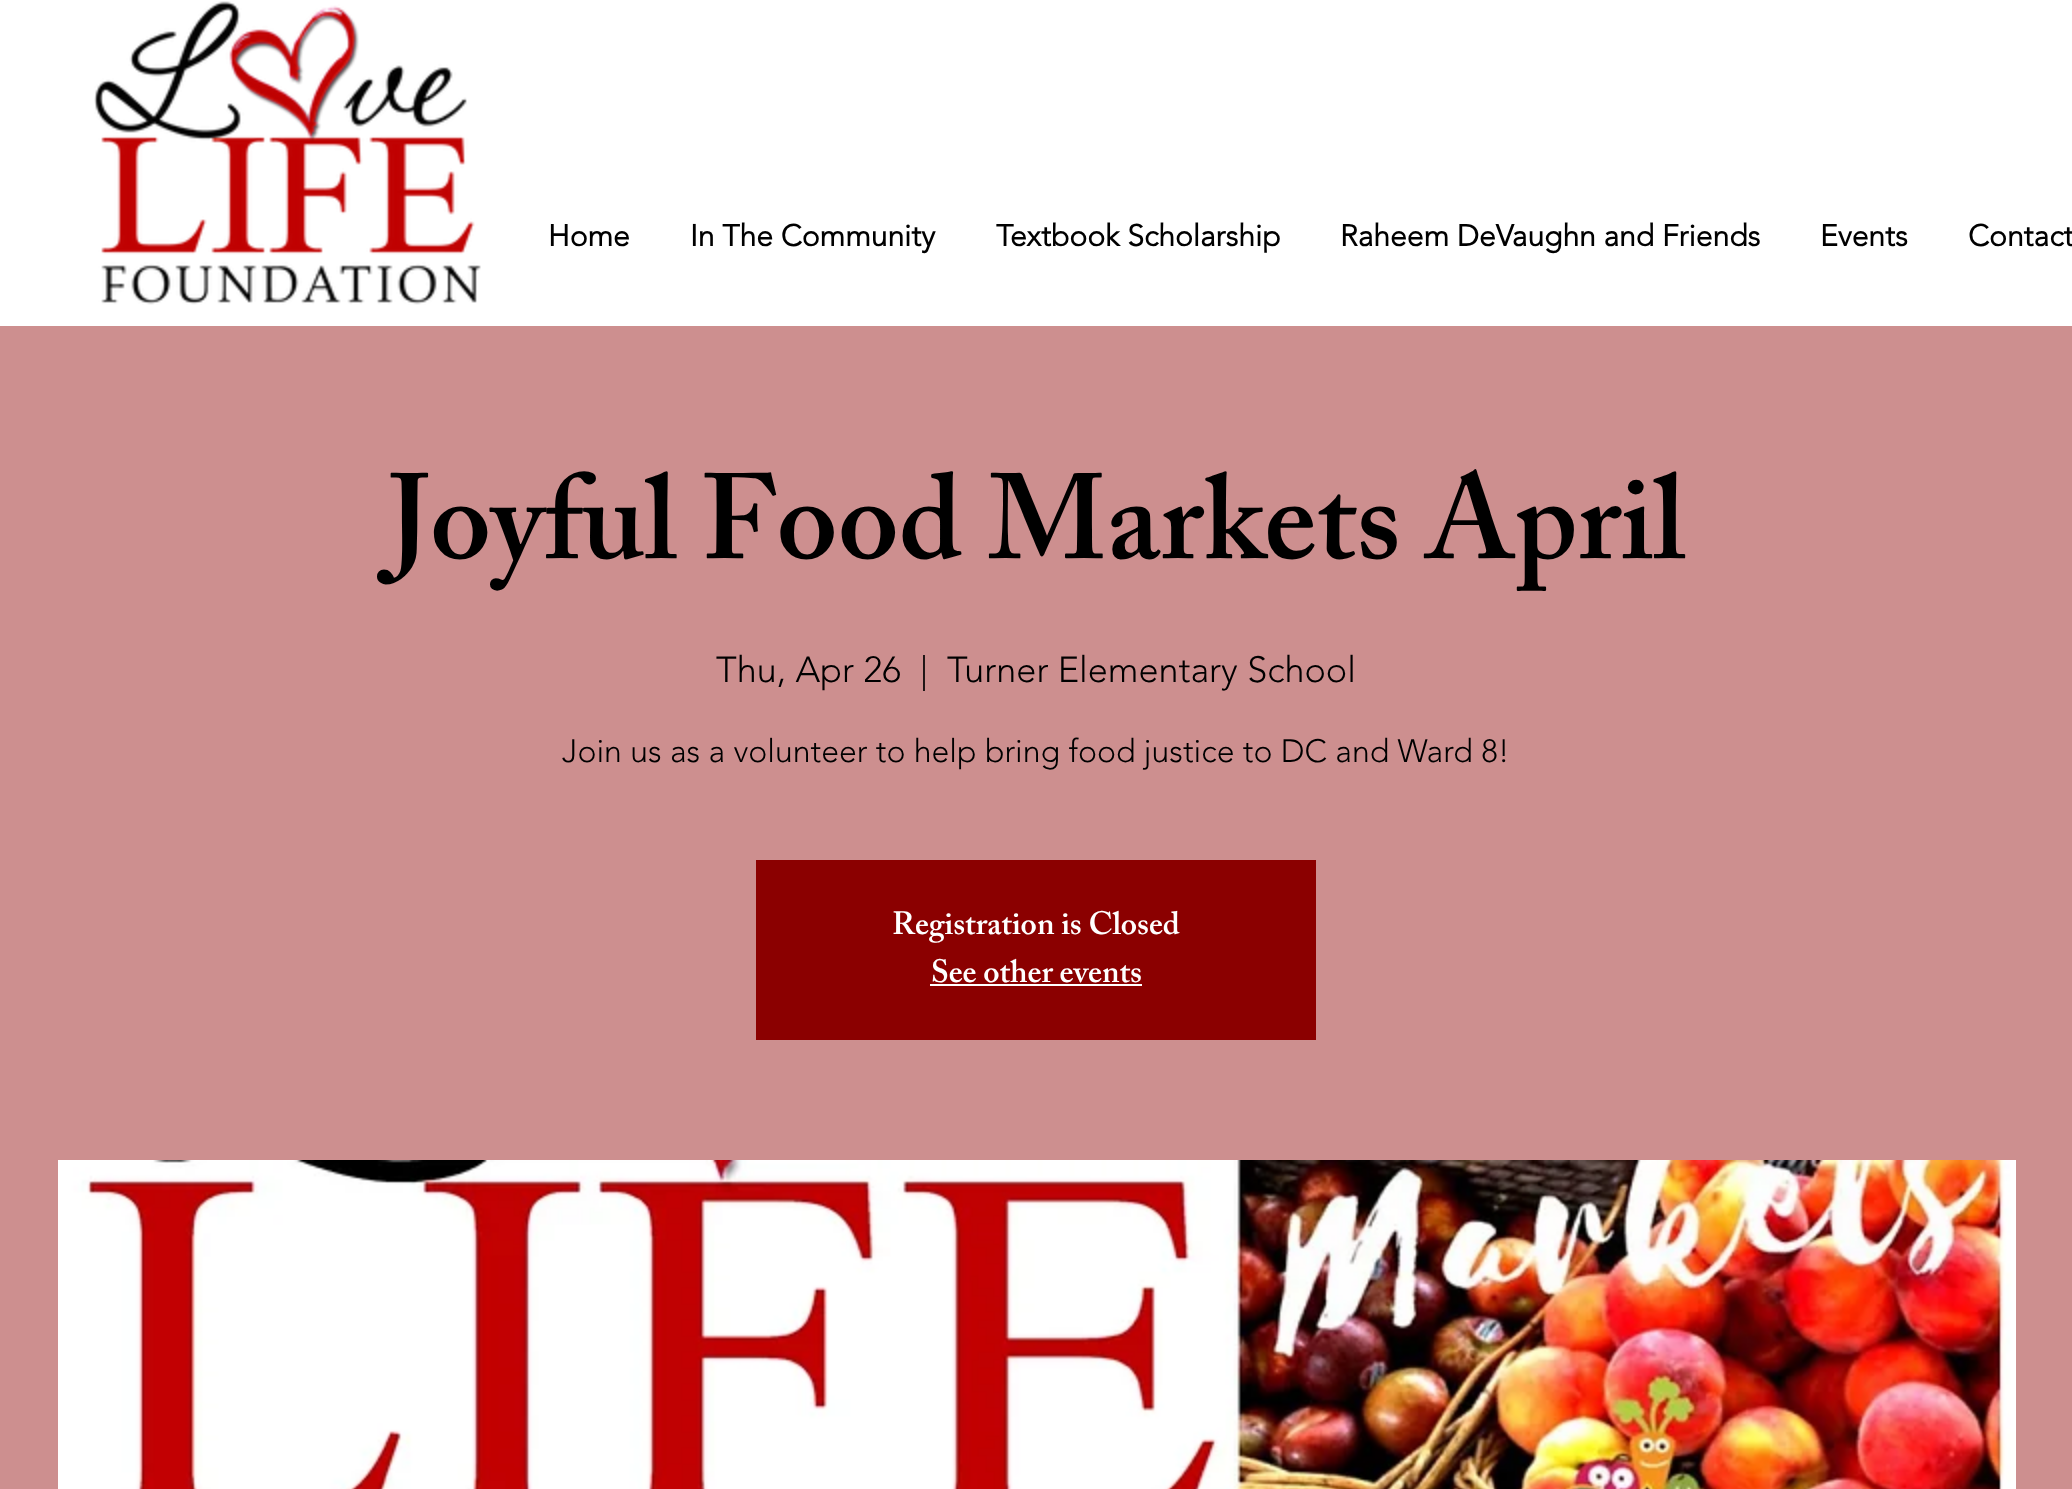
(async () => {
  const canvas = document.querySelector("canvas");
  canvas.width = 2072;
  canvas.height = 1489;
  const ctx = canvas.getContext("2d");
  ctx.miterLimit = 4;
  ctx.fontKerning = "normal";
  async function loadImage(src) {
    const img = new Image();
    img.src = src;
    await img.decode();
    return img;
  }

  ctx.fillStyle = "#ffffff";
  ctx.fillRect(0, 0, 2072, 1489);
  ctx.drawImage(await loadImage("img/1.png"), 94, 1, 387, 304);
  for (const [x, y, w, h, color] of [
    [0, 326, 2072, 1163, "#cd8f8f"],
    [756, 860, 560, 180, "#8b0000"],
    [930, 984, 212, 2, "#ffffff"],
  ]) {
    ctx.fillStyle = color;
    ctx.fillRect(x, y, w, h);
  }
  ctx.drawImage(await loadImage("img/2.png"), 58, 1160, 1958, 329);
  ctx.font = "bold 30px 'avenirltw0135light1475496'";
  ctx.fillStyle = "#000000";
  for (const [text, x, y] of [
    ["Home", 548, 246],
    ["In The Community", 690, 246],
    ["Textbook Scholarship", 996, 246],
    ["Raheem DeVaughn and Friends", 1340, 246],
    ["Events", 1820, 246],
    ["Contact", 1968, 246],
  ]) {
    ctx.fillText(text, x, y);
  }
  ctx.font = "600 120px 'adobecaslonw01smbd'";
  ctx.fillText("Joyful Food Markets April", 388, 558);
  ctx.font = "300 36px 'avenirltw0135light1475496'";
  for (const [text, x, y] of [
    ["Thu, Apr 26", 716, 682],
    ["|", 920, 682],
    ["Turner Elementary School", 947, 682],
  ]) {
    ctx.fillText(text, x, y);
  }
  ctx.font = "300 32px 'avenirltw0135light1475496'";
  ctx.fillText("Join us as a volunteer to help bring food justice to DC and Ward 8!", 562, 762);
  ctx.font = "600 32px 'adobecaslonw01smbd'";
  ctx.fillStyle = "#ffffff";
  ctx.fillText("Registration is Closed", 892, 934);
  ctx.fillText("See other events", 931, 982);
})();
